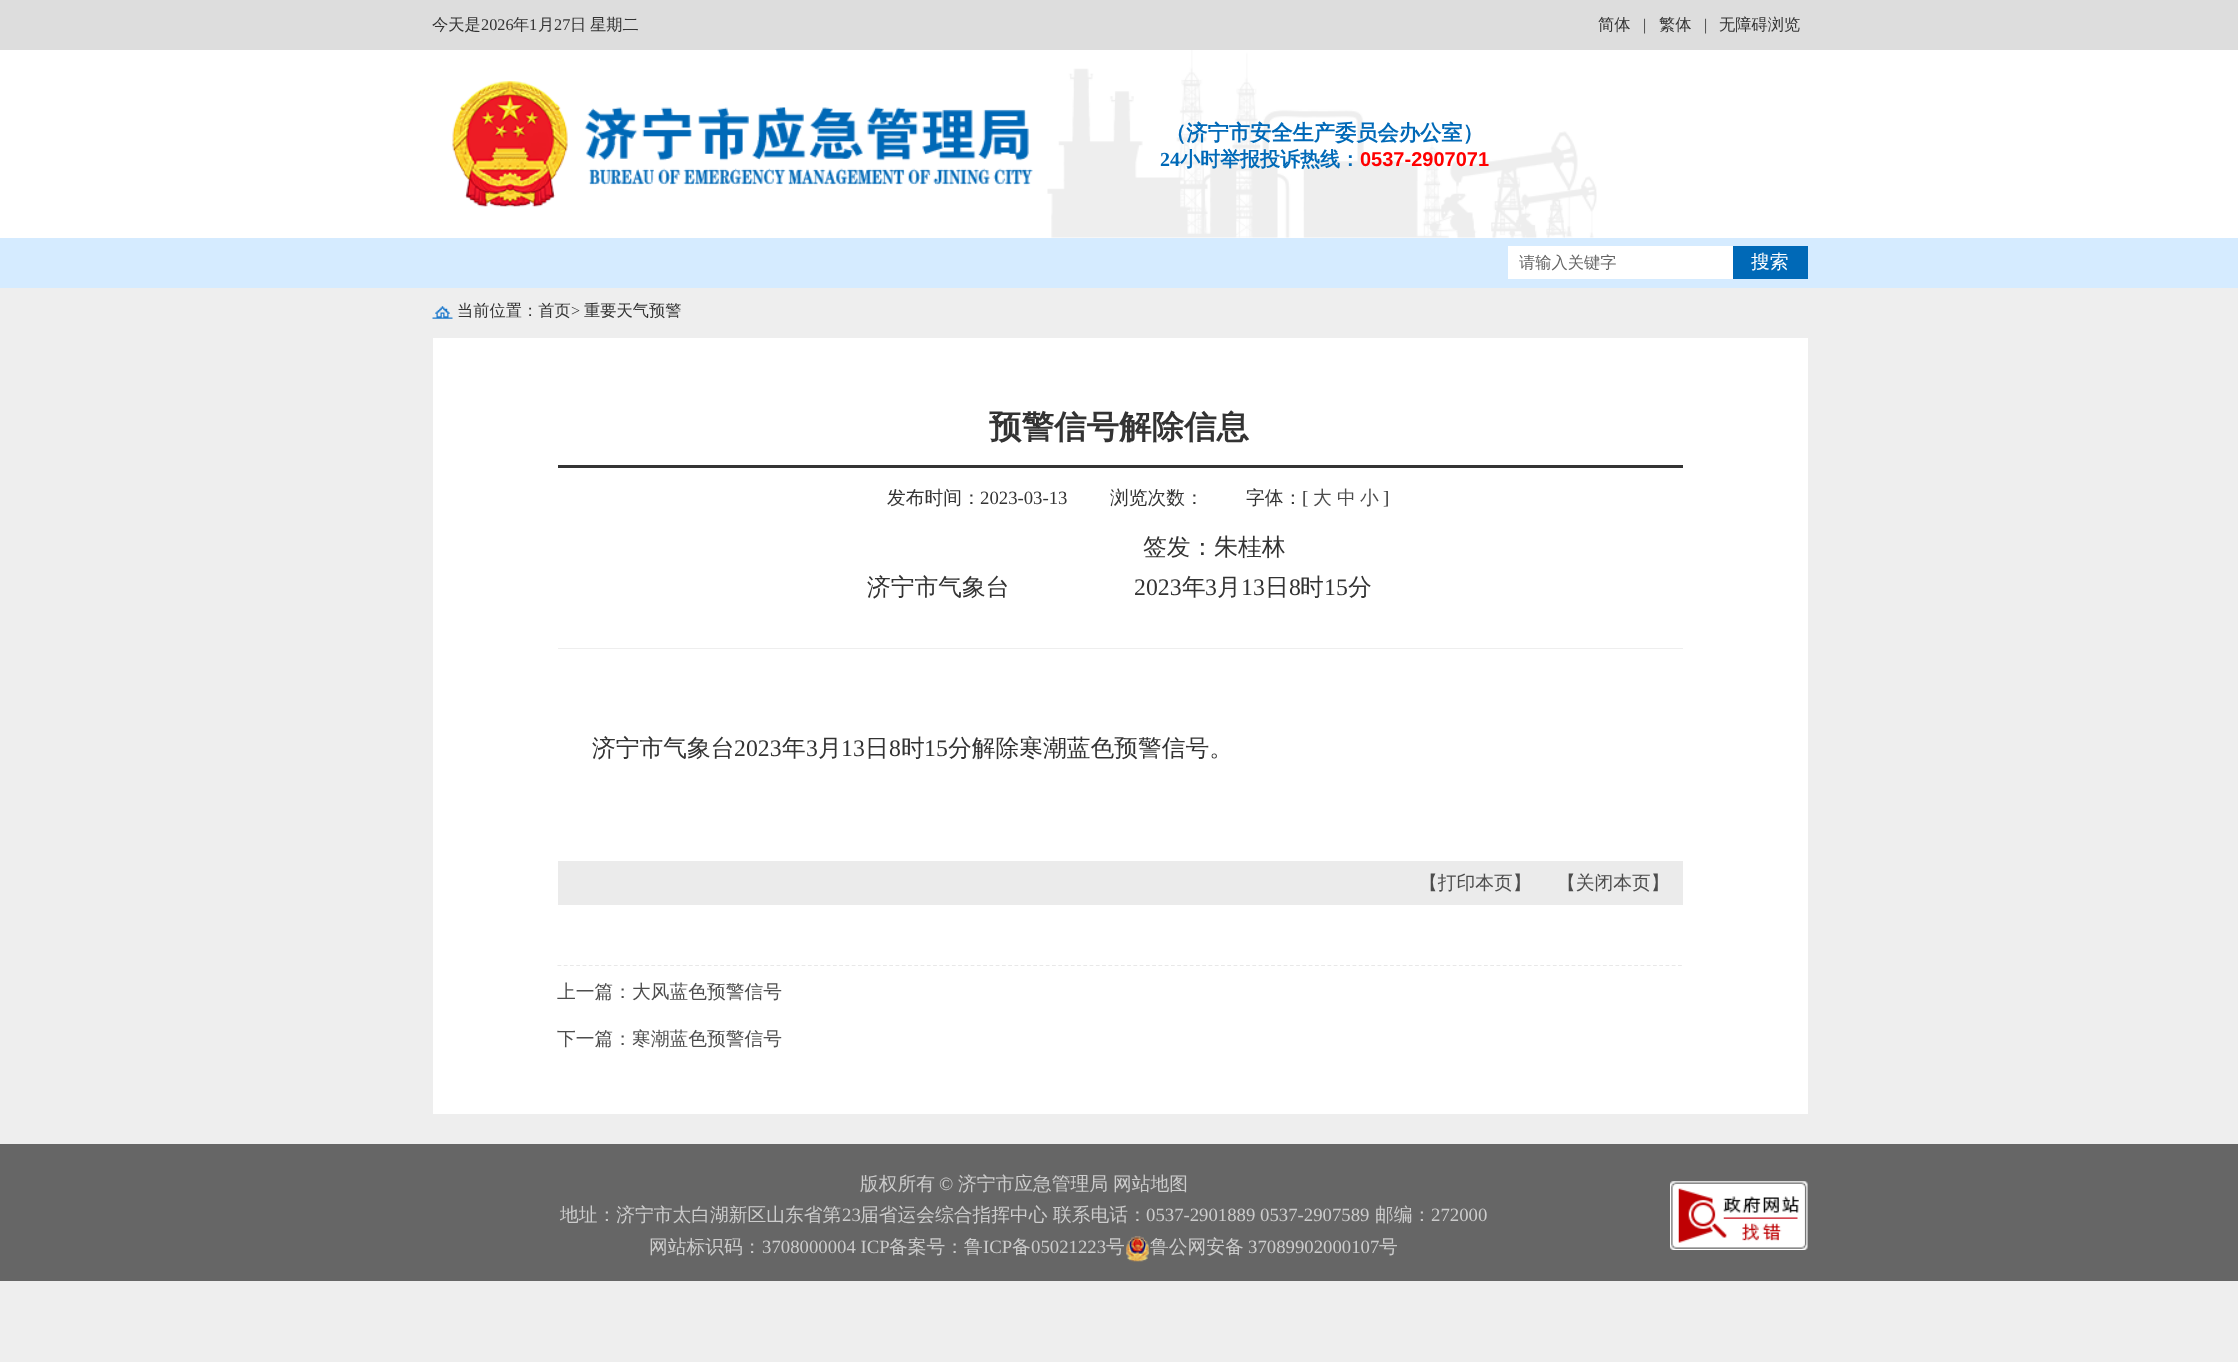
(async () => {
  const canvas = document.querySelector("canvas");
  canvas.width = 2238;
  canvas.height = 1362;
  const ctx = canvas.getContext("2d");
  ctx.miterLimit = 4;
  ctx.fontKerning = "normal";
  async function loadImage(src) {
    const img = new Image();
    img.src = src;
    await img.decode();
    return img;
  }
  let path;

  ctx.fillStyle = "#eeeeee";
  ctx.fillRect(0, 0, 2238, 1362);
  ctx.fillStyle = "#dddddd";
  ctx.fillRect(0, 0, 2238, 50);
  ctx.fillStyle = "#ffffff";
  ctx.fillRect(0, 50, 2238, 188);
  ctx.drawImage(await loadImage("img/1.png"), 1047, 50, 550, 188);
  ctx.drawImage(await loadImage("img/2.png"), 452, 81, 581, 126);
  for (const [x, y, w, h, color] of [
    [0, 238, 2238, 50, "#d5ebff"],
    [1508, 246, 225, 33, "#ffffff"],
    [1733, 246, 75, 33, "#0069b7"],
  ]) {
    ctx.fillStyle = color;
    ctx.fillRect(x, y, w, h);
  }
  ctx.drawImage(await loadImage("img/3.png"), 432, 306, 21, 13);
  for (const [x, y, w, h, color] of [
    [433, 338, 1375, 776, "#ffffff"],
    [558, 465, 1125, 3, "#343434"],
    [558, 648, 1125, 1, "#eeeeee"],
    [558, 861, 1125, 44, "#ebebeb"],
  ]) {
    ctx.fillStyle = color;
    ctx.fillRect(x, y, w, h);
  }
  path = new Path2D("M557.5 965.5H1682.5");
  ctx.strokeStyle = "#e8e8e8";
  ctx.lineWidth = 1.2;
  ctx.setLineDash([3.75, 2.51]);
  ctx.stroke(path);
  ctx.fillStyle = "#666666";
  ctx.fillRect(0, 1144, 2238, 137);
  ctx.drawImage(await loadImage("img/4.png"), 1126, 1236, 23, 26);
  ctx.drawImage(await loadImage("img/5.png"), 1670, 1181, 138, 69);
  ctx.font = "500 16.25px WenQuanYi Zen Hei";
  ctx.fillStyle = "#333333";
  ctx.fillText("今天是", 432, 30);
  ctx.font = "16.25px Liberation Serif";
  ctx.fillText("2026", 481, 30);
  ctx.font = "500 16.25px WenQuanYi Zen Hei";
  ctx.fillText("年", 513, 30);
  ctx.font = "16.25px Liberation Serif";
  ctx.fillText("1", 529, 30);
  ctx.font = "500 16.25px WenQuanYi Zen Hei";
  ctx.fillText("月", 538, 30);
  ctx.font = "16.25px Liberation Serif";
  ctx.fillText("27", 554, 30);
  ctx.font = "500 16.25px WenQuanYi Zen Hei";
  for (const [text, x, y] of [
    ["日", 570, 30],
    ["星期二", 590, 30],
    ["简体", 1598, 30],
  ]) {
    ctx.fillText(text, x, y);
  }
  ctx.font = "16.25px Liberation Serif";
  ctx.fillText("|", 1643, 30);
  ctx.font = "500 16.25px WenQuanYi Zen Hei";
  ctx.fillText("繁体", 1659, 30);
  ctx.font = "16.25px Liberation Serif";
  ctx.fillText("|", 1704, 30);
  ctx.font = "500 16.25px WenQuanYi Zen Hei";
  ctx.fillText("无障碍浏览", 1719, 30);
  ctx.font = "bold 21.25px WenQuanYi Zen Hei";
  ctx.fillStyle = "#0069b7";
  ctx.fillText("（济宁市安全生产委员会办公室）", 1165, 140);
  ctx.font = "bold 20px Liberation Serif";
  ctx.fillText("24", 1160, 166);
  ctx.font = "bold 20px WenQuanYi Zen Hei";
  ctx.fillText("小时举报投诉热线：", 1180, 166);
  ctx.font = "bold 20px Liberation Sans";
  ctx.fillStyle = "#ff0000";
  ctx.fillText("0537-2907071", 1360, 166);
  ctx.font = "500 16.25px WenQuanYi Zen Hei";
  ctx.fillStyle = "#666666";
  ctx.fillText("请输入关键字", 1519, 268);
  ctx.font = "500 18.75px WenQuanYi Zen Hei";
  ctx.fillStyle = "#ffffff";
  ctx.fillText("搜索", 1751, 268);
  ctx.font = "500 16.25px WenQuanYi Zen Hei";
  ctx.fillStyle = "#333333";
  ctx.fillText("当前位置：首页", 457, 316);
  ctx.font = "16.25px Liberation Serif";
  ctx.fillText(">", 571, 316);
  ctx.font = "500 16.25px WenQuanYi Zen Hei";
  ctx.fillText("重要天气预警", 584, 316);
  ctx.font = "bold 32.5px WenQuanYi Zen Hei";
  ctx.fillText("预警信号解除信息", 989, 438);
  ctx.font = "500 18.75px WenQuanYi Zen Hei";
  ctx.fillText("发布时间：", 887, 504);
  ctx.font = "18.75px Liberation Serif";
  ctx.fillText("2023-03-13", 980, 504);
  ctx.font = "500 18.75px WenQuanYi Zen Hei";
  ctx.fillText("浏览次数：", 1110, 504);
  ctx.fillText("字体：", 1246, 504);
  ctx.font = "18.75px Liberation Serif";
  ctx.fillText("[", 1302, 504);
  ctx.font = "500 18.75px WenQuanYi Zen Hei";
  ctx.fillStyle = "#4d4d4d";
  for (const [text, x, y] of [
    ["大", 1313, 504],
    ["中", 1337, 504],
    ["小", 1360, 504],
  ]) {
    ctx.fillText(text, x, y);
  }
  ctx.font = "18.75px Liberation Serif";
  ctx.fillStyle = "#333333";
  ctx.fillText("]", 1383, 504);
  ctx.font = "500 23.75px WenQuanYi Zen Hei";
  ctx.fillText("签发：朱桂林", 1143, 555);
  ctx.fillText("济宁市气象台", 867, 595);
  ctx.font = "23.75px Liberation Serif";
  ctx.fillText("2023", 1134, 595);
  ctx.font = "500 23.75px WenQuanYi Zen Hei";
  ctx.fillText("年", 1182, 595);
  ctx.font = "23.75px Liberation Serif";
  ctx.fillText("3", 1205, 595);
  ctx.font = "500 23.75px WenQuanYi Zen Hei";
  ctx.fillText("月", 1217, 595);
  ctx.font = "23.75px Liberation Serif";
  ctx.fillText("13", 1241, 595);
  ctx.font = "500 23.75px WenQuanYi Zen Hei";
  ctx.fillText("日", 1265, 595);
  ctx.font = "23.75px Liberation Serif";
  ctx.fillText("8", 1289, 595);
  ctx.font = "500 23.75px WenQuanYi Zen Hei";
  ctx.fillText("时", 1300, 595);
  ctx.font = "23.75px Liberation Serif";
  ctx.fillText("15", 1324, 595);
  ctx.font = "500 23.75px WenQuanYi Zen Hei";
  ctx.fillText("分", 1348, 595);
  ctx.fillText("济宁市气象台", 592, 756);
  ctx.font = "23.75px Liberation Serif";
  ctx.fillText("2023", 734, 756);
  ctx.font = "500 23.75px WenQuanYi Zen Hei";
  ctx.fillText("年", 782, 756);
  ctx.font = "23.75px Liberation Serif";
  ctx.fillText("3", 806, 756);
  ctx.font = "500 23.75px WenQuanYi Zen Hei";
  ctx.fillText("月", 818, 756);
  ctx.font = "23.75px Liberation Serif";
  ctx.fillText("13", 841, 756);
  ctx.font = "500 23.75px WenQuanYi Zen Hei";
  ctx.fillText("日", 865, 756);
  ctx.font = "23.75px Liberation Serif";
  ctx.fillText("8", 889, 756);
  ctx.font = "500 23.75px WenQuanYi Zen Hei";
  ctx.fillText("时", 901, 756);
  ctx.font = "23.75px Liberation Serif";
  ctx.fillText("15", 924, 756);
  ctx.font = "500 23.75px WenQuanYi Zen Hei";
  ctx.fillText("分解除寒潮蓝色预警信号。", 948, 756);
  ctx.font = "500 18.75px WenQuanYi Zen Hei";
  ctx.fillStyle = "#4d4d4d";
  for (const [text, x, y] of [
    ["【打印本页】", 1419, 889],
    ["【关闭本页】", 1557, 889],
    ["上一篇：大风蓝色预警信号", 557, 998],
    ["下一篇：寒潮蓝色预警信号", 557, 1045],
  ]) {
    ctx.fillText(text, x, y);
  }
  ctx.fillStyle = "#cccccc";
  ctx.fillText("版权所有", 860, 1190);
  ctx.font = "18.75px Liberation Serif";
  ctx.fillText("©", 939, 1190);
  ctx.font = "500 18.75px WenQuanYi Zen Hei";
  for (const [text, x, y] of [
    ["济宁市应急管理局", 958, 1190],
    ["网站地图", 1113, 1190],
    ["地址：济宁市太白湖新区山东省第", 560, 1221],
  ]) {
    ctx.fillText(text, x, y);
  }
  ctx.font = "18.75px Liberation Serif";
  ctx.fillText("23", 842, 1221);
  ctx.font = "500 18.75px WenQuanYi Zen Hei";
  ctx.fillText("届省运会综合指挥中心", 860, 1221);
  ctx.fillText("联系电话：", 1053, 1221);
  ctx.font = "18.75px Liberation Serif";
  ctx.fillText("0537-2901889 0537-2907589", 1146, 1221);
  ctx.font = "500 18.75px WenQuanYi Zen Hei";
  ctx.fillText("邮编：", 1375, 1221);
  ctx.font = "18.75px Liberation Serif";
  ctx.fillText("272000", 1431, 1221);
  ctx.font = "500 18.75px WenQuanYi Zen Hei";
  ctx.fillText("网站标识码：", 649, 1253);
  ctx.font = "18.75px Liberation Serif";
  ctx.fillText("3708000004 ICP", 762, 1253);
  ctx.font = "500 18.75px WenQuanYi Zen Hei";
  ctx.fillText("备案号：鲁", 889, 1253);
  ctx.font = "18.75px Liberation Serif";
  ctx.fillText("ICP", 983, 1253);
  ctx.font = "500 18.75px WenQuanYi Zen Hei";
  ctx.fillText("备", 1012, 1253);
  ctx.font = "18.75px Liberation Serif";
  ctx.fillText("05021223", 1031, 1253);
  ctx.font = "500 18.75px WenQuanYi Zen Hei";
  ctx.fillText("号", 1106, 1253);
  ctx.fillText("鲁公网安备", 1150, 1253);
  ctx.font = "18.75px Liberation Serif";
  ctx.fillText("37089902000107", 1248, 1253);
  ctx.font = "500 18.75px WenQuanYi Zen Hei";
  ctx.fillText("号", 1379, 1253);
})();
